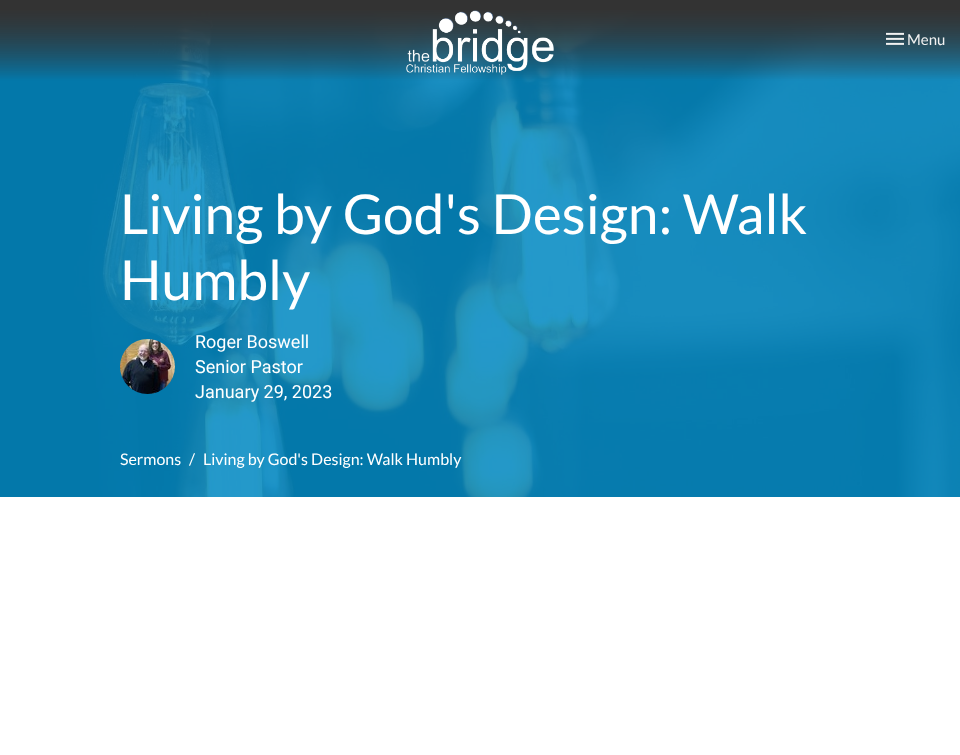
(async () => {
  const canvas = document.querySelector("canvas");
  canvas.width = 960;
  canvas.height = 755;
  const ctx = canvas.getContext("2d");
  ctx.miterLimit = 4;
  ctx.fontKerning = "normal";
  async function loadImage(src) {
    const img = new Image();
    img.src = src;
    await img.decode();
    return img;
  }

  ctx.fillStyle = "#ffffff";
  ctx.fillRect(0, 0, 960, 755);
  ctx.drawImage(await loadImage("img/3.png"), 0, 0, 960, 497);
  ctx.drawImage(await loadImage("img/1.png"), 406, 10, 148, 65);
  ctx.drawImage(await loadImage("img/2.png"), 886, 32, 18, 13);
  ctx.drawImage(await loadImage("img/4.png"), 120, 339, 55, 55);
  ctx.font = "15px Lato";
  ctx.fillStyle = "#f1f1f1";
  ctx.fillText("Menu", 907, 45);
  ctx.font = "55px Lato";
  ctx.fillStyle = "#ffffff";
  ctx.fillText("Living by God's Design: Walk", 120, 234);
  ctx.fillText("Humbly", 120, 300);
  ctx.font = "18px Roboto";
  for (const [text, x, y] of [
    ["Roger Boswell", 195, 348],
    ["Senior Pastor", 195, 373],
    ["January 29, 2023", 195, 398],
  ]) {
    ctx.fillText(text, x, y);
  }
  ctx.font = "16px Lato";
  for (const [text, x, y] of [
    ["Sermons", 120, 465],
    ["/", 189, 465],
    ["Living by God's Design: Walk Humbly", 203, 465],
  ]) {
    ctx.fillText(text, x, y);
  }
})();
